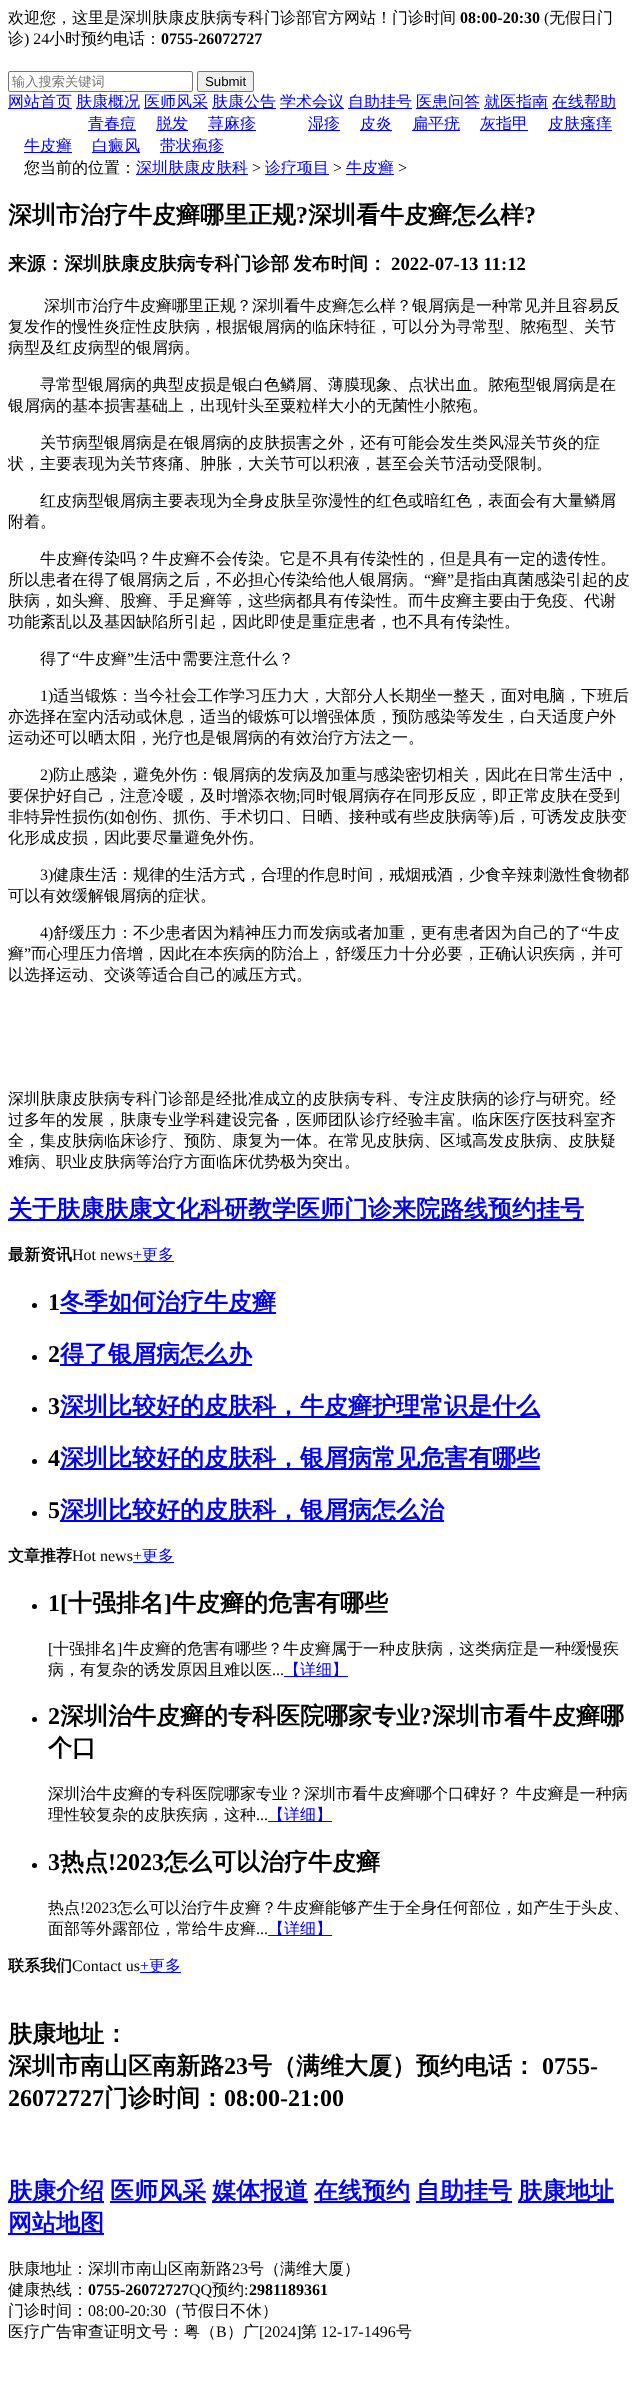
(async () => {
  const canvas = document.querySelector("canvas");
  canvas.width = 639;
  canvas.height = 2395;
  const ctx = canvas.getContext("2d");
  ctx.miterLimit = 4;
  ctx.fontKerning = "normal";

  ctx.fillStyle = "#ffffff";
  ctx.fillRect(0, 0, 639, 2395);
  ctx.beginPath();
  ctx.roundRect(8.5, 71.5, 184, 20, 1.5);
  ctx.strokeStyle = "#767676";
  ctx.stroke();
  ctx.fillStyle = "#efefef";
  ctx.beginPath();
  ctx.roundRect(197.5, 71.5, 56, 20, 1.5);
  ctx.fill();
  ctx.stroke();
  for (const [x, y, w, h, color] of [
    [8, 108, 64, 1, "#0000ee"],
    [76, 108, 64, 1, "#0000ee"],
    [144, 108, 64, 1, "#0000ee"],
    [212, 108, 64, 1, "#0000ee"],
    [280, 108, 64, 1, "#0000ee"],
    [348, 108, 64, 1, "#0000ee"],
    [416, 108, 64, 1, "#0000ee"],
    [484, 108, 64, 1, "#0000ee"],
    [552, 108, 64, 1, "#0000ee"],
    [88, 130, 48, 1, "#0000ee"],
    [156, 130, 32, 1, "#0000ee"],
    [208, 130, 48, 1, "#0000ee"],
    [308, 130, 32, 1, "#0000ee"],
    [360, 130, 32, 1, "#0000ee"],
    [412, 130, 48, 1, "#0000ee"],
    [480, 130, 48, 1, "#0000ee"],
    [548, 130, 64, 1, "#0000ee"],
    [24, 152, 48, 1, "#0000ee"],
    [92, 152, 48, 1, "#0000ee"],
    [160, 152, 64, 1, "#0000ee"],
    [136, 174, 112, 1, "#0000ee"],
    [265, 174, 64, 1, "#0000ee"],
    [346, 174, 48, 1, "#0000ee"],
    [8, 1219, 576, 2, "#0000ee"],
    [133, 1261, 41, 1, "#0000ee"],
  ]) {
    ctx.fillStyle = color;
    ctx.fillRect(x, y, w, h);
  }
  ctx.fillStyle = "#000000";
  ctx.beginPath();
  ctx.arc(34.5, 1305.5, 2.5, 0, Math.PI * 2);
  ctx.fill();
  ctx.fillStyle = "#0000ee";
  ctx.fillRect(60, 1312, 216, 2);
  ctx.fillStyle = "#000000";
  ctx.beginPath();
  ctx.arc(34.5, 1357.5, 2.5, 0, Math.PI * 2);
  ctx.fill();
  ctx.fillStyle = "#0000ee";
  ctx.fillRect(60, 1364, 192, 2);
  ctx.fillStyle = "#000000";
  ctx.beginPath();
  ctx.arc(34.5, 1409.5, 2.5, 0, Math.PI * 2);
  ctx.fill();
  ctx.fillStyle = "#0000ee";
  ctx.fillRect(60, 1416, 480, 2);
  ctx.fillStyle = "#000000";
  ctx.beginPath();
  ctx.arc(34.5, 1461.5, 2.5, 0, Math.PI * 2);
  ctx.fill();
  ctx.fillStyle = "#0000ee";
  ctx.fillRect(60, 1468, 480, 2);
  ctx.fillStyle = "#000000";
  ctx.beginPath();
  ctx.arc(34.5, 1513.5, 2.5, 0, Math.PI * 2);
  ctx.fill();
  ctx.fillStyle = "#0000ee";
  ctx.fillRect(60, 1520, 384, 2);
  ctx.fillRect(133, 1562, 41, 1);
  ctx.fillStyle = "#000000";
  ctx.beginPath();
  ctx.arc(34.5, 1606.5, 2.5, 0, Math.PI * 2);
  ctx.fill();
  ctx.fillStyle = "#0000ee";
  ctx.fillRect(284, 1676, 64, 1);
  ctx.fillStyle = "#000000";
  ctx.beginPath();
  ctx.arc(34.5, 1719.5, 2.5, 0, Math.PI * 2);
  ctx.fill();
  ctx.fillStyle = "#0000ee";
  ctx.fillRect(268, 1821, 64, 1);
  ctx.fillStyle = "#000000";
  ctx.beginPath();
  ctx.arc(34.5, 1865.5, 2.5, 0, Math.PI * 2);
  ctx.fill();
  for (const [x, y, w, h, color] of [
    [268, 1935, 64, 1, "#0000ee"],
    [140, 1972, 41, 1, "#0000ee"],
    [8, 2201, 96, 2, "#0000ee"],
    [110, 2201, 96, 2, "#0000ee"],
    [212, 2201, 96, 2, "#0000ee"],
    [314, 2201, 96, 2, "#0000ee"],
    [416, 2201, 96, 2, "#0000ee"],
    [518, 2201, 96, 2, "#0000ee"],
    [8, 2233, 96, 2, "#0000ee"],
  ]) {
    ctx.fillStyle = color;
    ctx.fillRect(x, y, w, h);
  }
  ctx.font = "500 16px WenQuanYi Zen Hei";
  ctx.fillStyle = "#000000";
  ctx.fillText("欢迎您，这里是深圳肤康皮肤病专科门诊部官方网站！门诊时间", 8, 23);
  ctx.font = "bold 16px Liberation Serif";
  ctx.fillText("08:00-20:30", 460, 23);
  ctx.font = "16px Liberation Serif";
  ctx.fillText("(", 544, 23);
  ctx.font = "500 16px WenQuanYi Zen Hei";
  ctx.fillText("无假日门", 549, 23);
  ctx.fillText("诊", 8, 44);
  ctx.font = "16px Liberation Serif";
  ctx.fillText(") 24", 24, 44);
  ctx.font = "500 16px WenQuanYi Zen Hei";
  ctx.fillText("小时预约电话：", 49, 44);
  ctx.font = "bold 16px Liberation Serif";
  ctx.fillText("0755-26072727", 161, 44);
  ctx.font = "500 13.25px WenQuanYi Zen Hei";
  ctx.fillStyle = "#757575";
  ctx.fillText("输入搜索关键词", 12, 86);
  ctx.font = "13.25px Liberation Sans";
  ctx.fillStyle = "#000000";
  ctx.fillText("Submit", 205, 86);
  ctx.font = "500 16px WenQuanYi Zen Hei";
  ctx.fillStyle = "#0000ee";
  for (const [text, x, y] of [
    ["网站首页", 8, 107],
    ["肤康概况", 76, 107],
    ["医师风采", 144, 107],
    ["肤康公告", 212, 107],
    ["学术会议", 280, 107],
    ["自助挂号", 348, 107],
    ["医患问答", 416, 107],
    ["就医指南", 484, 107],
    ["在线帮助", 552, 107],
    ["青春痘", 88, 129],
    ["脱发", 156, 129],
    ["荨麻疹", 208, 129],
    ["湿疹", 308, 129],
    ["皮炎", 360, 129],
    ["扁平疣", 412, 129],
    ["灰指甲", 480, 129],
    ["皮肤瘙痒", 548, 129],
    ["牛皮癣", 24, 151],
    ["白癜风", 92, 151],
    ["带状疱疹", 160, 151],
  ]) {
    ctx.fillText(text, x, y);
  }
  ctx.fillStyle = "#000000";
  ctx.fillText("您当前的位置：", 24, 173);
  ctx.fillStyle = "#0000ee";
  ctx.fillText("深圳肤康皮肤科", 136, 173);
  ctx.font = "16px Liberation Serif";
  ctx.fillStyle = "#000000";
  ctx.fillText(">", 252, 173);
  ctx.font = "500 16px WenQuanYi Zen Hei";
  ctx.fillStyle = "#0000ee";
  ctx.fillText("诊疗项目", 265, 173);
  ctx.font = "16px Liberation Serif";
  ctx.fillStyle = "#000000";
  ctx.fillText(">", 333, 173);
  ctx.font = "500 16px WenQuanYi Zen Hei";
  ctx.fillStyle = "#0000ee";
  ctx.fillText("牛皮癣", 346, 173);
  ctx.font = "16px Liberation Serif";
  ctx.fillStyle = "#000000";
  ctx.fillText(">", 398, 173);
  ctx.font = "bold 24px WenQuanYi Zen Hei";
  ctx.fillText("深圳市治疗牛皮癣哪里正规", 8, 223);
  ctx.font = "bold 24px Liberation Serif";
  ctx.fillText("?", 296, 223);
  ctx.font = "bold 24px WenQuanYi Zen Hei";
  ctx.fillText("深圳看牛皮癣怎么样", 308, 223);
  ctx.font = "bold 24px Liberation Serif";
  ctx.fillText("?", 524, 223);
  ctx.font = "bold 18.75px WenQuanYi Zen Hei";
  ctx.fillText("来源：深圳肤康皮肤病专科门诊部", 8, 270);
  ctx.fillText("发布时间：", 293, 270);
  ctx.font = "bold 18.75px Liberation Serif";
  ctx.fillText("2022-07-13 11:12", 391, 270);
  ctx.font = "500 16px WenQuanYi Zen Hei";
  for (const [text, x, y] of [
    ["深圳市治疗牛皮癣哪里正规？深圳看牛皮癣怎么样？银屑病是一种常见并且容易反", 44, 311],
    ["复发作的慢性炎症性皮肤病，根据银屑病的临床特征，可以分为寻常型、脓疱型、关节", 8, 332],
    ["病型及红皮病型的银屑病。", 8, 353],
    ["寻常型银屑病的典型皮损是银白色鳞屑、薄膜现象、点状出血。脓疱型银屑病是在", 40, 390],
    ["银屑病的基本损害基础上，出现针头至粟粒样大小的无菌性小脓疱。", 8, 411],
    ["关节病型银屑病是在银屑病的皮肤损害之外，还有可能会发生类风湿关节炎的症", 40, 448],
    ["状，主要表现为关节疼痛、肿胀，大关节可以积液，甚至会关节活动受限制。", 8, 469],
    ["红皮病型银屑病主要表现为全身皮肤呈弥漫性的红色或暗红色，表面会有大量鳞屑", 40, 506],
    ["附着。", 8, 527],
    ["牛皮癣传染吗？牛皮癣不会传染。它是不具有传染性的，但是具有一定的遗传性。", 40, 564],
    ["所以患者在得了银屑病之后，不必担心传染给他人银屑病。", 8, 585],
  ]) {
    ctx.fillText(text, x, y);
  }
  ctx.font = "16px Liberation Serif";
  ctx.fillText("“", 424, 585);
  ctx.font = "500 16px WenQuanYi Zen Hei";
  ctx.fillText("癣", 431, 585);
  ctx.font = "16px Liberation Serif";
  ctx.fillText("”", 447, 585);
  ctx.font = "500 16px WenQuanYi Zen Hei";
  for (const [text, x, y] of [
    ["是指由真菌感染引起的皮", 454, 585],
    ["肤病，如头癣、股癣、手足癣等，这些病都具有传染性。而牛皮癣主要由于免疫、代谢", 8, 606],
    ["功能紊乱以及基因缺陷所引起，因此即使是重症患者，也不具有传染性。", 8, 627],
    ["得了", 40, 664],
  ]) {
    ctx.fillText(text, x, y);
  }
  ctx.font = "16px Liberation Serif";
  ctx.fillText("“", 72, 664);
  ctx.font = "500 16px WenQuanYi Zen Hei";
  ctx.fillText("牛皮癣", 79, 664);
  ctx.font = "16px Liberation Serif";
  ctx.fillText("”", 127, 664);
  ctx.font = "500 16px WenQuanYi Zen Hei";
  ctx.fillText("生活中需要注意什么？", 134, 664);
  ctx.font = "16px Liberation Serif";
  ctx.fillText("1)", 40, 701);
  ctx.font = "500 16px WenQuanYi Zen Hei";
  for (const [text, x, y] of [
    ["适当锻炼：当今社会工作学习压力大，大部分人长期坐一整天，面对电脑，下班后", 53, 701],
    ["亦选择在室内活动或休息，适当的锻炼可以增强体质，预防感染等发生，白天适度户外", 8, 722],
    ["运动还可以晒太阳，光疗也是银屑病的有效治疗方法之一。", 8, 743],
  ]) {
    ctx.fillText(text, x, y);
  }
  ctx.font = "16px Liberation Serif";
  ctx.fillText("2)", 40, 780);
  ctx.font = "500 16px WenQuanYi Zen Hei";
  ctx.fillText("防止感染，避免外伤：银屑病的发病及加重与感染密切相关，因此在日常生活中，", 53, 780);
  ctx.fillText("要保护好自己，注意冷暖，及时增添衣物", 8, 801);
  ctx.font = "16px Liberation Serif";
  ctx.fillText(";", 296, 801);
  ctx.font = "500 16px WenQuanYi Zen Hei";
  ctx.fillText("同时银屑病存在同形反应，即正常皮肤在受到", 300, 801);
  ctx.fillText("非特异性损伤", 8, 822);
  ctx.font = "16px Liberation Serif";
  ctx.fillText("(", 104, 822);
  ctx.font = "500 16px WenQuanYi Zen Hei";
  ctx.fillText("如创伤、抓伤、手术切口、日晒、接种或有些皮肤病等", 109, 822);
  ctx.font = "16px Liberation Serif";
  ctx.fillText(")", 493, 822);
  ctx.font = "500 16px WenQuanYi Zen Hei";
  ctx.fillText("后，可诱发皮肤变", 499, 822);
  ctx.fillText("化形成皮损，因此要尽量避免外伤。", 8, 843);
  ctx.font = "16px Liberation Serif";
  ctx.fillText("3)", 40, 880);
  ctx.font = "500 16px WenQuanYi Zen Hei";
  ctx.fillText("健康生活：规律的生活方式，合理的作息时间，戒烟戒酒，少食辛辣刺激性食物都", 53, 880);
  ctx.fillText("可以有效缓解银屑病的症状。", 8, 901);
  ctx.font = "16px Liberation Serif";
  ctx.fillText("4)", 40, 938);
  ctx.font = "500 16px WenQuanYi Zen Hei";
  ctx.fillText("舒缓压力：不少患者因为精神压力而发病或者加重，更有患者因为自己的了", 53, 938);
  ctx.font = "16px Liberation Serif";
  ctx.fillText("“", 581, 938);
  ctx.font = "500 16px WenQuanYi Zen Hei";
  ctx.fillText("牛皮", 588, 938);
  ctx.fillText("癣", 8, 959);
  ctx.font = "16px Liberation Serif";
  ctx.fillText("”", 24, 959);
  ctx.font = "500 16px WenQuanYi Zen Hei";
  for (const [text, x, y] of [
    ["而心理压力倍增，因此在本疾病的防治上，舒缓压力十分必要，正确认识疾病，并可", 31, 959],
    ["以选择运动、交谈等适合自己的减压方式。", 8, 980],
    ["深圳肤康皮肤病专科门诊部是经批准成立的皮肤病专科、专注皮肤病的诊疗与研究。经", 8, 1104],
    ["过多年的发展，肤康专业学科建设完备，医师团队诊疗经验丰富。临床医疗医技科室齐", 8, 1125],
    ["全，集皮肤病临床诊疗、预防、康复为一体。在常见皮肤病、区域高发皮肤病、皮肤疑", 8, 1146],
    ["难病、职业皮肤病等治疗方面临床优势极为突出。", 8, 1167],
  ]) {
    ctx.fillText(text, x, y);
  }
  ctx.font = "bold 24px WenQuanYi Zen Hei";
  ctx.fillStyle = "#0000ee";
  ctx.fillText("关于肤康肤康文化科研教学医师门诊来院路线预约挂号", 8, 1217);
  ctx.font = "bold 16px WenQuanYi Zen Hei";
  ctx.fillStyle = "#000000";
  ctx.fillText("最新资讯", 8, 1260);
  ctx.font = "16px Liberation Serif";
  ctx.fillText("Hot news", 72, 1260);
  ctx.fillStyle = "#0000ee";
  ctx.fillText("+", 133, 1260);
  ctx.font = "500 16px WenQuanYi Zen Hei";
  ctx.fillText("更多", 142, 1260);
  ctx.font = "bold 24px Liberation Serif";
  ctx.fillStyle = "#000000";
  ctx.fillText("1", 48, 1310);
  ctx.font = "bold 24px WenQuanYi Zen Hei";
  ctx.fillStyle = "#0000ee";
  ctx.fillText("冬季如何治疗牛皮癣", 60, 1310);
  ctx.font = "bold 24px Liberation Serif";
  ctx.fillStyle = "#000000";
  ctx.fillText("2", 48, 1362);
  ctx.font = "bold 24px WenQuanYi Zen Hei";
  ctx.fillStyle = "#0000ee";
  ctx.fillText("得了银屑病怎么办", 60, 1362);
  ctx.font = "bold 24px Liberation Serif";
  ctx.fillStyle = "#000000";
  ctx.fillText("3", 48, 1414);
  ctx.font = "bold 24px WenQuanYi Zen Hei";
  ctx.fillStyle = "#0000ee";
  ctx.fillText("深圳比较好的皮肤科，牛皮癣护理常识是什么", 60, 1414);
  ctx.font = "bold 24px Liberation Serif";
  ctx.fillStyle = "#000000";
  ctx.fillText("4", 48, 1466);
  ctx.font = "bold 24px WenQuanYi Zen Hei";
  ctx.fillStyle = "#0000ee";
  ctx.fillText("深圳比较好的皮肤科，银屑病常见危害有哪些", 60, 1466);
  ctx.font = "bold 24px Liberation Serif";
  ctx.fillStyle = "#000000";
  ctx.fillText("5", 48, 1518);
  ctx.font = "bold 24px WenQuanYi Zen Hei";
  ctx.fillStyle = "#0000ee";
  ctx.fillText("深圳比较好的皮肤科，银屑病怎么治", 60, 1518);
  ctx.font = "bold 16px WenQuanYi Zen Hei";
  ctx.fillStyle = "#000000";
  ctx.fillText("文章推荐", 8, 1561);
  ctx.font = "16px Liberation Serif";
  ctx.fillText("Hot news", 72, 1561);
  ctx.fillStyle = "#0000ee";
  ctx.fillText("+", 133, 1561);
  ctx.font = "500 16px WenQuanYi Zen Hei";
  ctx.fillText("更多", 142, 1561);
  ctx.font = "bold 24px Liberation Serif";
  ctx.fillStyle = "#000000";
  ctx.fillText("1[", 48, 1611);
  ctx.font = "bold 24px WenQuanYi Zen Hei";
  ctx.fillText("十强排名", 68, 1611);
  ctx.font = "bold 24px Liberation Serif";
  ctx.fillText("]", 164, 1611);
  ctx.font = "bold 24px WenQuanYi Zen Hei";
  ctx.fillText("牛皮癣的危害有哪些", 172, 1611);
  ctx.font = "16px Liberation Serif";
  ctx.fillText("[", 48, 1654);
  ctx.font = "500 16px WenQuanYi Zen Hei";
  ctx.fillText("十强排名", 53, 1654);
  ctx.font = "16px Liberation Serif";
  ctx.fillText("]", 117, 1654);
  ctx.font = "500 16px WenQuanYi Zen Hei";
  ctx.fillText("牛皮癣的危害有哪些？牛皮癣属于一种皮肤病，这类病症是一种缓慢疾", 123, 1654);
  ctx.fillText("病，有复杂的诱发原因且难以医", 48, 1675);
  ctx.font = "16px Liberation Serif";
  ctx.fillText("...", 272, 1675);
  ctx.font = "500 16px WenQuanYi Zen Hei";
  ctx.fillStyle = "#0000ee";
  ctx.fillText("【详细】", 284, 1675);
  ctx.font = "bold 24px Liberation Serif";
  ctx.fillStyle = "#000000";
  ctx.fillText("2", 48, 1724);
  ctx.font = "bold 24px WenQuanYi Zen Hei";
  ctx.fillText("深圳治牛皮癣的专科医院哪家专业", 60, 1724);
  ctx.font = "bold 24px Liberation Serif";
  ctx.fillText("?", 420, 1724);
  ctx.font = "bold 24px WenQuanYi Zen Hei";
  ctx.fillText("深圳市看牛皮癣哪", 432, 1724);
  ctx.fillText("个口", 48, 1756);
  ctx.wordSpacing = "-1px";
  ctx.font = "500 16px WenQuanYi Zen Hei";
  ctx.fillText("深圳治牛皮癣的专科医院哪家专业？深圳市看牛皮癣哪个口碑好？ 牛皮癣是一种病", 48, 1799);
  ctx.wordSpacing = "0px";
  ctx.fillText("理性较复杂的皮肤疾病，这种", 48, 1820);
  ctx.font = "16px Liberation Serif";
  ctx.fillText("...", 256, 1820);
  ctx.font = "500 16px WenQuanYi Zen Hei";
  ctx.fillStyle = "#0000ee";
  ctx.fillText("【详细】", 268, 1820);
  ctx.font = "bold 24px Liberation Serif";
  ctx.fillStyle = "#000000";
  ctx.fillText("3", 48, 1870);
  ctx.font = "bold 24px WenQuanYi Zen Hei";
  ctx.fillText("热点", 60, 1870);
  ctx.font = "bold 24px Liberation Serif";
  ctx.fillText("!2023", 108, 1870);
  ctx.font = "bold 24px WenQuanYi Zen Hei";
  ctx.fillText("怎么可以治疗牛皮癣", 164, 1870);
  ctx.font = "500 16px WenQuanYi Zen Hei";
  ctx.fillText("热点", 48, 1913);
  ctx.font = "16px Liberation Serif";
  ctx.fillText("!2023", 80, 1913);
  ctx.font = "500 16px WenQuanYi Zen Hei";
  ctx.fillText("怎么可以治疗牛皮癣？牛皮癣能够产生于全身任何部位，如产生于头皮、", 117, 1913);
  ctx.fillText("面部等外露部位，常给牛皮癣", 48, 1934);
  ctx.font = "16px Liberation Serif";
  ctx.fillText("...", 256, 1934);
  ctx.font = "500 16px WenQuanYi Zen Hei";
  ctx.fillStyle = "#0000ee";
  ctx.fillText("【详细】", 268, 1934);
  ctx.font = "bold 16px WenQuanYi Zen Hei";
  ctx.fillStyle = "#000000";
  ctx.fillText("联系我们", 8, 1971);
  ctx.font = "16px Liberation Serif";
  ctx.fillText("Contact us", 72, 1971);
  ctx.fillStyle = "#0000ee";
  ctx.fillText("+", 140, 1971);
  ctx.font = "500 16px WenQuanYi Zen Hei";
  ctx.fillText("更多", 149, 1971);
  ctx.font = "bold 24px WenQuanYi Zen Hei";
  ctx.fillStyle = "#000000";
  ctx.fillText("肤康地址：", 8, 2042);
  ctx.fillText("深圳市南山区南新路", 8, 2074);
  ctx.font = "bold 24px Liberation Serif";
  ctx.fillText("23", 224, 2074);
  ctx.font = "bold 24px WenQuanYi Zen Hei";
  ctx.fillText("号（满维大厦）预约电话：", 248, 2074);
  ctx.font = "bold 24px Liberation Serif";
  ctx.fillText("0755-", 542, 2074);
  ctx.fillText("26072727", 8, 2106);
  ctx.font = "bold 24px WenQuanYi Zen Hei";
  ctx.fillText("门诊时间：", 104, 2106);
  ctx.font = "bold 24px Liberation Serif";
  ctx.fillText("08:00-21:00", 224, 2106);
  ctx.font = "bold 24px WenQuanYi Zen Hei";
  ctx.fillStyle = "#0000ee";
  for (const [text, x, y] of [
    ["肤康介绍", 8, 2199],
    ["医师风采", 110, 2199],
    ["媒体报道", 212, 2199],
    ["在线预约", 314, 2199],
    ["自助挂号", 416, 2199],
    ["肤康地址", 518, 2199],
    ["网站地图", 8, 2231],
  ]) {
    ctx.fillText(text, x, y);
  }
  ctx.font = "500 16px WenQuanYi Zen Hei";
  ctx.fillStyle = "#000000";
  ctx.fillText("肤康地址：深圳市南山区南新路", 8, 2274);
  ctx.font = "16px Liberation Serif";
  ctx.fillText("23", 232, 2274);
  ctx.font = "500 16px WenQuanYi Zen Hei";
  ctx.fillText("号（满维大厦）", 248, 2274);
  ctx.fillText("健康热线：", 8, 2295);
  ctx.font = "bold 16px Liberation Serif";
  ctx.fillText("0755-26072727", 88, 2295);
  ctx.font = "16px Liberation Serif";
  ctx.fillText("QQ", 189, 2295);
  ctx.font = "500 16px WenQuanYi Zen Hei";
  ctx.fillText("预约", 212, 2295);
  ctx.font = "16px Liberation Serif";
  ctx.fillText(":", 244, 2295);
  ctx.font = "bold 16px Liberation Serif";
  ctx.fillText("2981189361", 249, 2295);
  ctx.font = "500 16px WenQuanYi Zen Hei";
  ctx.fillText("门诊时间：", 8, 2316);
  ctx.font = "16px Liberation Serif";
  ctx.fillText("08:00-20:30", 88, 2316);
  ctx.font = "500 16px WenQuanYi Zen Hei";
  ctx.fillText("（节假日不休）", 166, 2316);
  ctx.fillText("医疗广告审查证明文号：粤（", 8, 2337);
  ctx.font = "16px Liberation Serif";
  ctx.fillText("B", 216, 2337);
  ctx.font = "500 16px WenQuanYi Zen Hei";
  ctx.fillText("）广", 227, 2337);
  ctx.font = "16px Liberation Serif";
  ctx.fillText("[2024]", 259, 2337);
  ctx.font = "500 16px WenQuanYi Zen Hei";
  ctx.fillText("第", 301, 2337);
  ctx.font = "16px Liberation Serif";
  ctx.fillText("12-17-1496", 321, 2337);
  ctx.font = "500 16px WenQuanYi Zen Hei";
  ctx.fillText("号", 396, 2337);
})();
